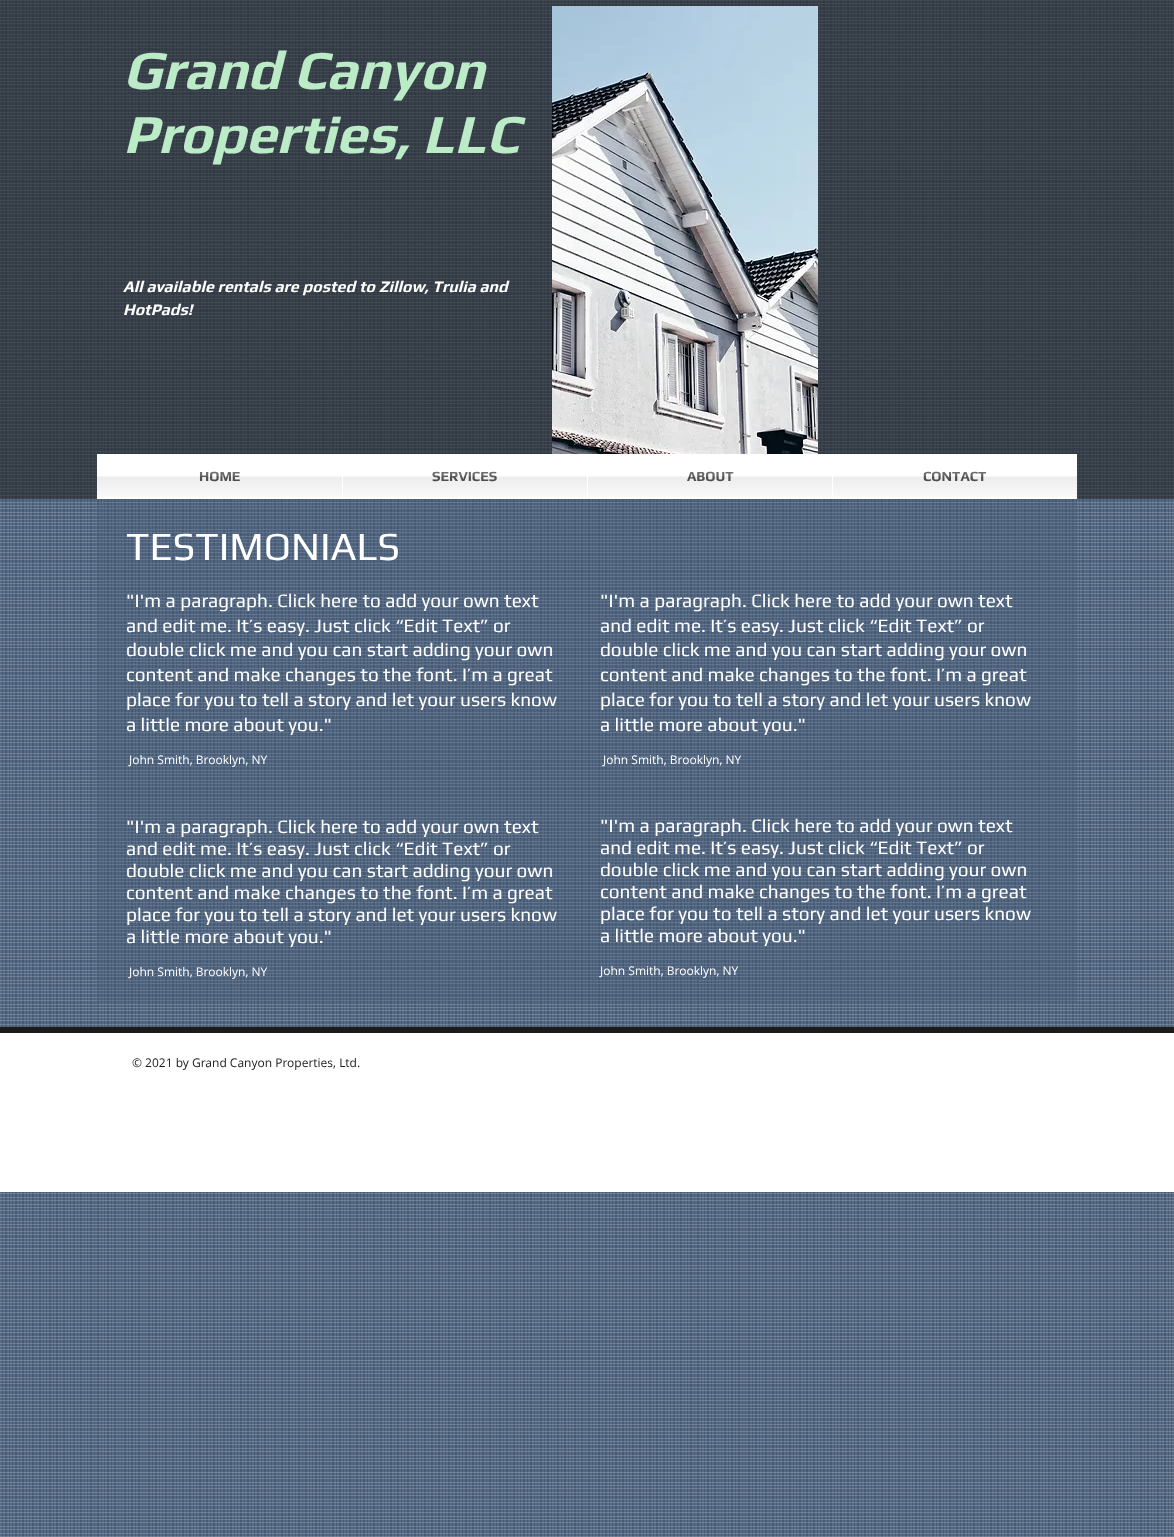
(async () => {
  const canvas = document.querySelector("canvas");
  canvas.width = 1174;
  canvas.height = 1537;
  const ctx = canvas.getContext("2d");
  ctx.miterLimit = 4;
  ctx.fontKerning = "normal";
  async function loadImage(src) {
    const img = new Image();
    img.src = src;
    await img.decode();
    return img;
  }

  ctx.fillStyle = "#445b77";
  ctx.fillRect(0, 0, 1174, 1537);
  ctx.drawImage(await loadImage("img/1.png"), 0, 0, 1174, 1537);
  ctx.fillStyle = "rgba(35, 35, 35, 0.6)";
  ctx.fillRect(0, 0, 1174, 499);
  ctx.drawImage(await loadImage("img/2.png"), 552, 6, 266, 448);
  for (const [x, y, w, h, color] of [
    [97, 454, 980, 45, "#ffffff"],
    [97, 499, 980, 503, "rgba(68, 91, 119, 0.3)"],
    [0, 1033, 1174, 159, "#ffffff"],
    [0, 1027, 1174, 6, "#1b1b1b"],
  ]) {
    ctx.fillStyle = color;
    ctx.fillRect(x, y, w, h);
  }
  ctx.font = "italic bold 55px Play";
  ctx.fillStyle = "#bcebc8";
  ctx.fillText("Grand Canyon", 123, 89);
  ctx.fillText("Properties, LLC", 123, 153);
  ctx.font = "italic bold 16px Play";
  ctx.fillStyle = "#ffffff";
  ctx.fillText("All available rentals are posted to Zillow, Trulia and", 123, 292);
  ctx.fillText("HotPads!", 123, 315);
  ctx.font = "bold 14px Play";
  ctx.fillStyle = "#545454";
  ctx.fillText("HOME", 199, 481);
  ctx.drawImage(await loadImage("img/3.png"), 97, 471, 245, 26);
  ctx.fillText("SERVICES", 432, 481);
  ctx.drawImage(await loadImage("img/4.png"), 343, 471, 244, 26);
  ctx.fillText("ABOUT", 687, 481);
  ctx.drawImage(await loadImage("img/5.png"), 588, 471, 244, 26);
  ctx.fillText("CONTACT", 923, 481);
  ctx.drawImage(await loadImage("img/6.png"), 833, 471, 244, 26);
  ctx.font = "40px Play";
  ctx.fillStyle = "#ffffff";
  ctx.fillText("TESTIMONIALS", 126, 560);
  ctx.font = "19px Play";
  for (const [text, x, y] of [
    ["\"I'm a paragraph. Click here to add your own text", 126, 607],
    ["and edit me. It’s easy. Just click “Edit Text” or", 126, 632],
    ["double click me and you can start adding your own", 126, 656],
    ["content and make changes to the font. I’m a great", 126, 681],
    ["place for you to tell a story and let your users know", 126, 706],
    ["a little more about you.\"", 126, 731],
  ]) {
    ctx.fillText(text, x, y);
  }
  ctx.font = "12px Open Sans";
  ctx.fillText("John Smith, Brooklyn, NY", 129, 764);
  ctx.font = "19px Play";
  for (const [text, x, y] of [
    ["\"I'm a paragraph. Click here to add your own text", 126, 833],
    ["and edit me. It’s easy. Just click “Edit Text” or", 126, 855],
    ["double click me and you can start adding your own", 126, 877],
    ["content and make changes to the font. I’m a great", 126, 899],
    ["place for you to tell a story and let your users know", 126, 921],
    ["a little more about you.\"", 126, 943],
  ]) {
    ctx.fillText(text, x, y);
  }
  ctx.font = "12px Open Sans";
  ctx.fillText("John Smith, Brooklyn, NY", 129, 976);
  ctx.font = "19px Play";
  for (const [text, x, y] of [
    ["\"I'm a paragraph. Click here to add your own text", 600, 607],
    ["and edit me. It’s easy. Just click “Edit Text” or", 600, 632],
    ["double click me and you can start adding your own", 600, 656],
    ["content and make changes to the font. I’m a great", 600, 681],
    ["place for you to tell a story and let your users know", 600, 706],
    ["a little more about you.\"", 600, 731],
  ]) {
    ctx.fillText(text, x, y);
  }
  ctx.font = "12px Open Sans";
  ctx.fillText("John Smith, Brooklyn, NY", 603, 764);
  ctx.font = "19px Play";
  for (const [text, x, y] of [
    ["\"I'm a paragraph. Click here to add your own text", 600, 832],
    ["and edit me. It’s easy. Just click “Edit Text” or", 600, 854],
    ["double click me and you can start adding your own", 600, 876],
    ["content and make changes to the font. I’m a great", 600, 898],
    ["place for you to tell a story and let your users know", 600, 920],
    ["a little more about you.\"", 600, 942],
  ]) {
    ctx.fillText(text, x, y);
  }
  ctx.font = "12px Open Sans";
  ctx.fillText("John Smith, Brooklyn, NY", 600, 975);
  ctx.fillStyle = "#1b1b1b";
  ctx.fillText("© 2021 by Grand Canyon Properties, Ltd.", 132, 1067);
})();
